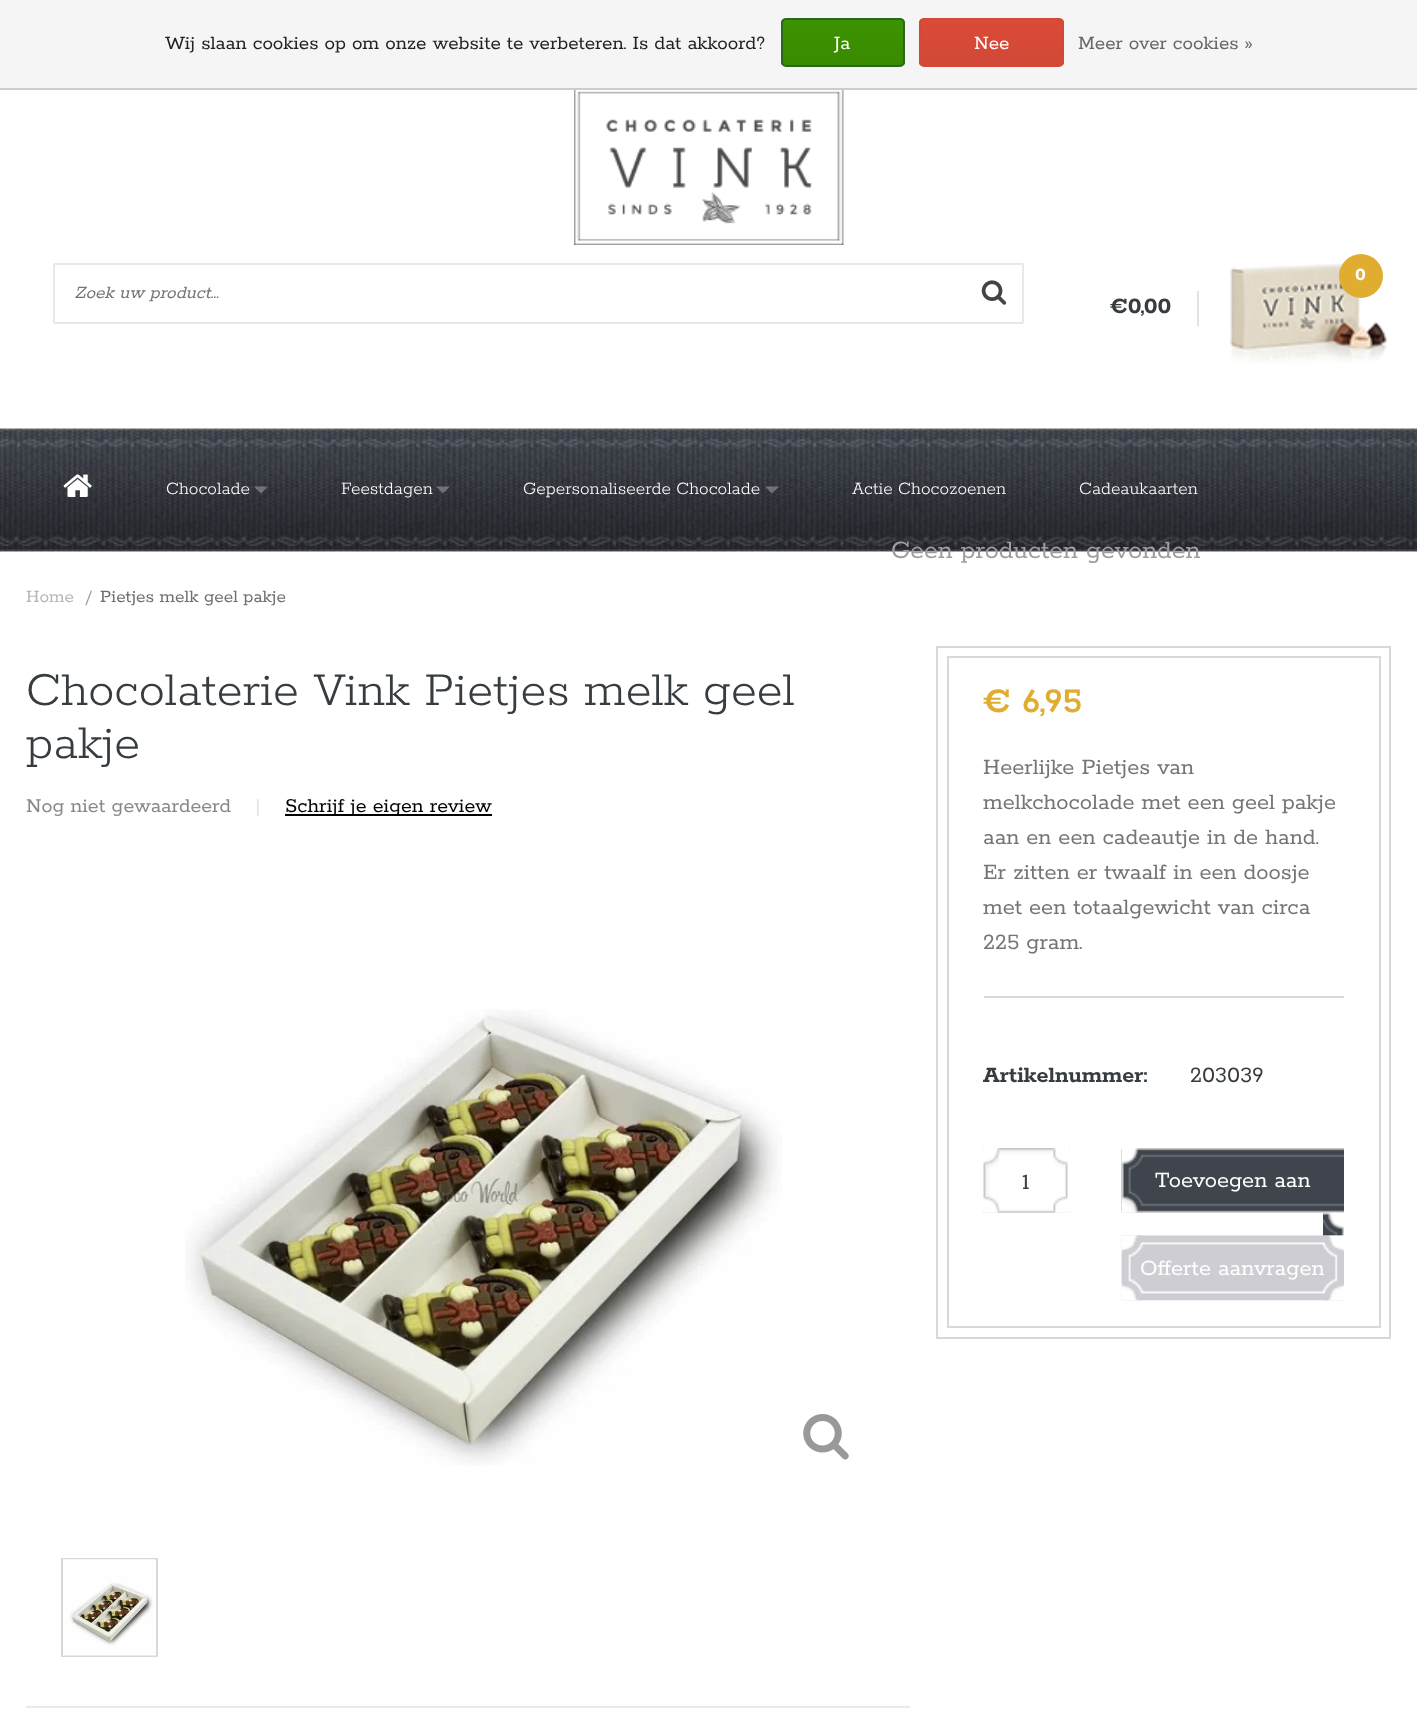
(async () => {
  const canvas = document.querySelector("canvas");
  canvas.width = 1417;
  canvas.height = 1725;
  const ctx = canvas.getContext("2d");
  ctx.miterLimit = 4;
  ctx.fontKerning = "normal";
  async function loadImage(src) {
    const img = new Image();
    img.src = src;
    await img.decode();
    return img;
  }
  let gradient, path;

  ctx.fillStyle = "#ffffff";
  ctx.fillRect(0, 0, 1417, 1725);
  ctx.fillStyle = "#f5f5f5";
  ctx.fillRect(0, 0, 1417, 88);
  ctx.fillStyle = "#cccccc";
  ctx.fillRect(0, 88, 1417, 2);
  ctx.save();
  ctx.beginPath();
  ctx.roundRect(781, 18, 124, 49, 5);
  ctx.clip();
  gradient = ctx.createLinearGradient(843, 19, 843, 65);
  gradient.addColorStop(0, "#3c9300");
  gradient.addColorStop(1, "#398a00");
  ctx.fillStyle = gradient;
  ctx.fillRect(781, 19, 124, 46);
  ctx.restore();
  ctx.beginPath();
  ctx.roundRect(782, 19, 122, 47, 4);
  ctx.strokeStyle = "#29691d";
  ctx.lineWidth = 2;
  ctx.stroke();
  ctx.save();
  ctx.beginPath();
  ctx.roundRect(919, 18, 145, 49, 5);
  ctx.clip();
  gradient = ctx.createLinearGradient(991, 19, 991, 65);
  gradient.addColorStop(0, "#dc4a38");
  gradient.addColorStop(1, "#d14836");
  ctx.fillStyle = gradient;
  ctx.fillRect(919, 19, 145, 46);
  ctx.restore();
  ctx.beginPath();
  ctx.roundRect(920, 19, 143, 47, 4);
  ctx.strokeStyle = "#d14836";
  ctx.stroke();
  ctx.drawImage(await loadImage("img/1.png"), 574, 90, 270, 155);
  ctx.beginPath();
  ctx.roundRect(54, 264, 969, 59, 1);
  ctx.strokeStyle = "#e8e8e8";
  ctx.stroke();
  ctx.drawImage(await loadImage("img/2.png"), 981, 280, 26, 25);
  ctx.drawImage(await loadImage("img/3.png"), 1230, 263, 157, 101);
  ctx.fillStyle = "#e3e3e3";
  ctx.fillRect(1197, 291, 2, 35);
  ctx.fillStyle = "#e1ad31";
  ctx.beginPath();
  ctx.arc(1361, 276, 22, 0, Math.PI * 2);
  ctx.fill();
  ctx.drawImage(await loadImage("img/4.png"), 0, 428, 1417, 124);
  ctx.drawImage(await loadImage("img/5.png"), 63, 474, 29, 23);
  ctx.fillStyle = "rgba(255, 255, 255, 0.3)";
  path = new Path2D("M254 486.5H268L261 493.5Z");
  ctx.fill(path);
  path = new Path2D("M436 486.5H450L443 493.5Z");
  ctx.fill(path);
  path = new Path2D("M765 486.5H779L772 493.5Z");
  ctx.fill(path);
  ctx.fillStyle = "#000000";
  ctx.fillRect(285, 814, 207, 2);
  ctx.drawImage(await loadImage("img/6.png"), 185, 1009, 597, 457);
  ctx.drawImage(await loadImage("img/7.png"), 803, 1414, 46, 46);
  ctx.strokeStyle = "#d8d8d8";
  ctx.strokeRect(62, 1559, 95, 97);
  ctx.drawImage(await loadImage("img/8.png"), 63, 1559, 93, 97);
  ctx.fillStyle = "#eaeaea";
  ctx.fillRect(26, 1706, 884, 2);
  ctx.strokeRect(937, 647, 453, 691);
  ctx.strokeRect(948, 657, 432, 670);
  ctx.fillStyle = "#d8d8d8";
  ctx.fillRect(984, 996, 360, 2);
  ctx.drawImage(await loadImage("img/9.png"), 983, 1148, 87, 65);
  ctx.drawImage(await loadImage("img/10.png"), 983, 1148, 17, 65);
  ctx.drawImage(await loadImage("img/11.png"), 1053, 1148, 16, 65);
  ctx.drawImage(await loadImage("img/12.png"), 1121, 1148, 223, 65);
  ctx.drawImage(await loadImage("img/13.png"), 1121, 1148, 22, 65);
  ctx.drawImage(await loadImage("img/14.png"), 1323, 1212, 21, 24);
  ctx.drawImage(await loadImage("img/15.png"), 1121, 1235, 223, 66);
  ctx.drawImage(await loadImage("img/16.png"), 1121, 1235, 22, 66);
  ctx.drawImage(await loadImage("img/17.png"), 1323, 1235, 21, 66);
  ctx.font = "21px Rokkitt";
  ctx.fillStyle = "#222222";
  ctx.fillText("Wij slaan cookies op om onze website te verbeteren. Is dat akkoord?", 165, 49);
  ctx.fillStyle = "#ffffff";
  ctx.fillText("Ja", 834, 49);
  ctx.fillText("Nee", 974, 49);
  ctx.fillStyle = "#666666";
  ctx.fillText("Meer over cookies »", 1078, 49);
  ctx.font = "italic 19.25px Rokkitt";
  ctx.fillStyle = "#757575";
  ctx.fillText("Zoek uw product...", 74, 298);
  ctx.font = "bold 19.25px Rokkitt";
  ctx.fillStyle = "#ffffff";
  ctx.fillText("0", 1355, 280);
  ctx.font = "bold 24.5px Rokkitt";
  ctx.fillStyle = "#363c3f";
  ctx.fillText("€0,00", 1110, 313);
  ctx.font = "28px Rokkitt";
  ctx.fillStyle = "#9e9ea0";
  ctx.fillText("Geen producten gevonden", 891, 558);
  ctx.font = "300 19.25px Rokkitt";
  ctx.fillStyle = "#ffffff";
  for (const [text, x, y] of [
    ["Chocolade", 166, 494],
    ["Feestdagen", 341, 494],
    ["Gepersonaliseerde Chocolade", 523, 494],
    ["Actie Chocozoenen", 852, 494],
    ["Cadeaukaarten", 1079, 494],
  ]) {
    ctx.fillText(text, x, y);
  }
  ctx.font = "19.25px Rokkitt";
  ctx.fillStyle = "#b5b7b8";
  ctx.fillText("Home", 26, 602);
  ctx.letterSpacing = "-4px";
  ctx.fillStyle = "#999999";
  ctx.fillText("/", 85, 602);
  ctx.letterSpacing = "0px";
  ctx.fillStyle = "#6b6f71";
  ctx.fillText("Pietjes melk geel pakje", 100, 602);
  ctx.font = "300 52.5px Rokkitt";
  ctx.fillStyle = "#363c3f";
  ctx.fillText("Chocolaterie Vink Pietjes melk geel", 26, 705);
  ctx.fillText("pakje", 26, 758);
  ctx.font = "22px Rokkitt";
  ctx.fillStyle = "#888888";
  ctx.fillText("Nog niet gewaardeerd", 26, 812);
  ctx.fillStyle = "#dddddd";
  ctx.fillText("|", 255, 812);
  ctx.fillStyle = "#000000";
  ctx.fillText("Schrijf je eigen review", 285, 812);
  ctx.font = "600 38.5px Rokkitt";
  ctx.fillStyle = "#e1ad31";
  ctx.fillText("€ 6,95", 983, 712);
  ctx.font = "24.5px Rokkitt";
  ctx.fillStyle = "#757575";
  for (const [text, x, y] of [
    ["Heerlijke Pietjes van", 983, 774],
    ["melkchocolade met een geel pakje", 983, 809],
    ["aan en een cadeautje in de hand.", 983, 844],
    ["Er zitten er twaalf in een doosje", 983, 879],
    ["met een totaalgewicht van circa", 983, 914],
    ["225 gram.", 983, 949],
  ]) {
    ctx.fillText(text, x, y);
  }
  ctx.font = "bold 24.5px Rokkitt";
  ctx.fillStyle = "#363c3f";
  ctx.fillText("Artikelnummer:", 983, 1082);
  ctx.font = "24.5px Rokkitt";
  ctx.fillText("203039", 1190, 1082);
  ctx.fillStyle = "#3f3e3d";
  ctx.fillText("1", 1022, 1189);
  ctx.fillStyle = "#ffffff";
  ctx.fillText("Toevoegen aan", 1155, 1187);
  ctx.fillText("Offerte aanvragen", 1140, 1275);
})();
